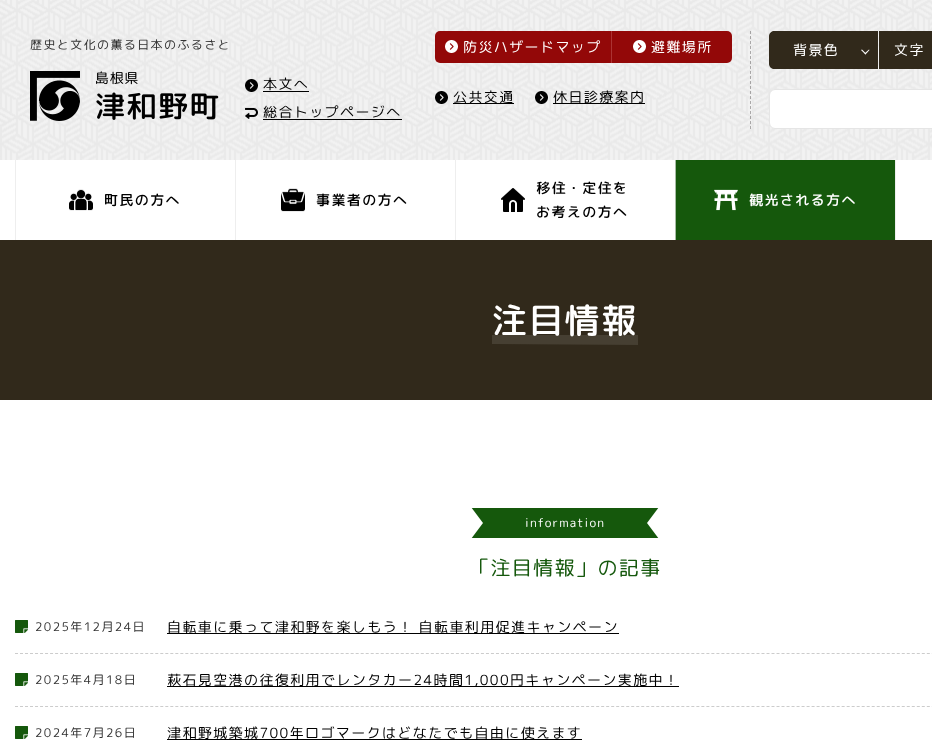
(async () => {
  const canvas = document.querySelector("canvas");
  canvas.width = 932;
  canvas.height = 747;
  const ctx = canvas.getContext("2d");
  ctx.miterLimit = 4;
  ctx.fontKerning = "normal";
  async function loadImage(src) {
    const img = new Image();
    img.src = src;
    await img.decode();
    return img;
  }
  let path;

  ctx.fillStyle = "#ffffff";
  ctx.fillRect(0, 0, 932, 747);
  ctx.fillStyle = "#f2f2f2";
  ctx.fillRect(0, 0, 932, 160);
  ctx.drawImage(await loadImage("img/1.png"), 0, 0, 932, 160);
  ctx.drawImage(await loadImage("img/2.png"), 30, 71, 189, 50);
  ctx.drawImage(await loadImage("img/3.png"), 245, 79, 13, 13);
  ctx.fillStyle = "#000000";
  ctx.fillRect(263, 91, 46, 1);
  ctx.drawImage(await loadImage("img/4.png"), 245, 107, 13, 12);
  ctx.fillRect(263, 119, 139, 1);
  ctx.fillStyle = "#930808";
  ctx.beginPath();
  ctx.roundRect(435, 31, 176, 32, [5, 0, 0, 5]);
  ctx.fill();
  ctx.fillStyle = "#ac3333";
  ctx.fillRect(611, 31, 1, 32);
  ctx.drawImage(await loadImage("img/5.png"), 445, 40, 13, 13);
  ctx.fillStyle = "#930808";
  ctx.beginPath();
  ctx.roundRect(612, 31, 120, 32, [0, 5, 5, 0]);
  ctx.fill();
  ctx.drawImage(await loadImage("img/5.png"), 633, 40, 13, 13);
  ctx.drawImage(await loadImage("img/6.png"), 435, 91, 13, 13);
  ctx.fillStyle = "#000000";
  ctx.fillRect(453, 103, 61, 1);
  ctx.drawImage(await loadImage("img/7.png"), 535, 91, 13, 13);
  ctx.fillRect(553, 103, 92, 1);
  path = new Path2D("M750.5 31V129");
  ctx.strokeStyle = "rgba(8, 0, 0, 0.3)";
  ctx.setLineDash([3, 2]);
  ctx.stroke(path);
  ctx.fillStyle = "#31291b";
  path = new Path2D("M774 31H878V69H774C772 69 769 67 769 64V36C769 33 772 31 774 31Z");
  ctx.fill(path);
  ctx.fillStyle = "#ffffff";
  path = new Path2D("M869 49.5L869.5 50L865.5 54.5L864.5 53.5Z");
  ctx.fill(path);
  path = new Path2D("M862 49.5L866 53.5L865.5 54.5L861 50Z");
  ctx.fill(path);
  ctx.fillStyle = "#31291b";
  ctx.fillRect(879, 31, 53, 38);
  ctx.fillStyle = "#ffffff";
  path = new Path2D("M775 89.5H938.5V128.5H775C772 128.5 769.5 126 769.5 123V95C769.5 92 772 89.5 775 89.5Z");
  ctx.fill(path);
  ctx.strokeStyle = "#e5e5e5";
  ctx.setLineDash([]);
  ctx.stroke(path);
  ctx.fillStyle = "#eeeeee";
  ctx.fillRect(15, 160, 1, 80);
  ctx.drawImage(await loadImage("img/8.png"), 69, 189, 24, 22);
  ctx.fillRect(235, 160, 1, 80);
  ctx.drawImage(await loadImage("img/9.png"), 281, 188, 24, 24);
  ctx.fillRect(455, 160, 1, 80);
  ctx.drawImage(await loadImage("img/10.png"), 501, 188, 24, 24);
  ctx.fillStyle = "#15580c";
  ctx.fillRect(676, 160, 219, 80);
  ctx.fillStyle = "#a7bba5";
  ctx.fillRect(675, 160, 1, 80);
  ctx.drawImage(await loadImage("img/11.png"), 714, 189, 24, 22);
  ctx.fillStyle = "#eeeeee";
  ctx.fillRect(895, 160, 1, 80);
  ctx.fillStyle = "#31291b";
  ctx.fillRect(0, 240, 932, 160);
  ctx.fillStyle = "#463f32";
  path = new Path2D("M492 344V335H638V345Z");
  ctx.fill(path);
  ctx.fillStyle = "#15580c";
  ctx.fillRect(471, 508, 188, 30);
  ctx.fillStyle = "#ffffff";
  path = new Path2D("M468 543V503L483 523Z");
  ctx.fill(path);
  path = new Path2D("M662 503V543L647 523Z");
  ctx.fill(path);
  path = new Path2D("M15 653.5H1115");
  ctx.strokeStyle = "#cccccc";
  ctx.setLineDash([3, 2.01]);
  ctx.stroke(path);
  ctx.drawImage(await loadImage("img/12.png"), 15, 620, 13, 13);
  ctx.fillStyle = "#000000";
  ctx.fillRect(167, 633, 452, 1);
  path = new Path2D("M15 706.5H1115");
  ctx.stroke(path);
  ctx.drawImage(await loadImage("img/12.png"), 15, 673, 13, 13);
  ctx.fillRect(167, 686, 512, 1);
  ctx.drawImage(await loadImage("img/12.png"), 15, 726, 13, 13);
  ctx.fillRect(167, 739, 415, 1);
  ctx.letterSpacing = "1.4px";
  ctx.font = "12px 'Rounded Mplus 1c'";
  ctx.fillStyle = "#333333";
  ctx.fillText("歴史と文化の薫る日本のふるさと", 30, 49);
  ctx.font = "14px 'Rounded Mplus 1c'";
  ctx.fillStyle = "#000000";
  ctx.fillText("本文へ", 263, 89);
  ctx.fillText("総合トップページへ", 263, 117);
  ctx.fillStyle = "#ffffff";
  ctx.fillText("防災ハザードマップ", 463, 52);
  ctx.fillText("避難場所", 651, 52);
  ctx.fillStyle = "#000000";
  ctx.fillText("公共交通", 453, 102);
  ctx.fillText("休日診療案内", 553, 102);
  ctx.fillStyle = "#ffffff";
  ctx.fillText("背景色", 793, 55);
  ctx.fillText("文字", 894, 55);
  ctx.font = "500 14px 'Rounded Mplus 1c'";
  ctx.fillStyle = "#000000";
  for (const [text, x, y] of [
    ["町民の方へ", 104, 205],
    ["事業者の方へ", 316, 205],
    ["移住・定住を", 536, 193],
    ["お考えの方へ", 536, 217],
  ]) {
    ctx.fillText(text, x, y);
  }
  ctx.fillStyle = "#ffffff";
  ctx.fillText("観光される方へ", 749, 205);
  ctx.font = "500 35px 'Rounded Mplus 1c'";
  ctx.fillText("注目情報", 492, 333);
  ctx.letterSpacing = "1.25px";
  ctx.font = "12px 'Rounded Mplus 1c'";
  ctx.fillText("information", 525, 527);
  ctx.letterSpacing = "1.4px";
  ctx.font = "20px 'Rounded Mplus 1c'";
  ctx.fillStyle = "#15580c";
  ctx.fillText("「注目情報」の記事", 469, 575);
  ctx.font = "12px 'Rounded Mplus 1c'";
  ctx.fillStyle = "#333333";
  ctx.fillText("2025年12月24日", 35, 631);
  ctx.font = "14px 'Rounded Mplus 1c'";
  ctx.fillStyle = "#000000";
  ctx.fillText("自転車に乗って津和野を楽しもう！ 自転車利用促進キャンペーン", 167, 632);
  ctx.font = "12px 'Rounded Mplus 1c'";
  ctx.fillStyle = "#333333";
  ctx.fillText("2025年4月18日", 35, 684);
  ctx.font = "14px 'Rounded Mplus 1c'";
  ctx.fillStyle = "#000000";
  ctx.fillText("萩石見空港の往復利用でレンタカー24時間1,000円キャンペーン実施中！", 167, 685);
  ctx.font = "12px 'Rounded Mplus 1c'";
  ctx.fillStyle = "#333333";
  ctx.fillText("2024年7月26日", 35, 737);
  ctx.font = "14px 'Rounded Mplus 1c'";
  ctx.fillStyle = "#000000";
  ctx.fillText("津和野城築城700年ロゴマークはどなたでも自由に使えます", 167, 738);
})();
